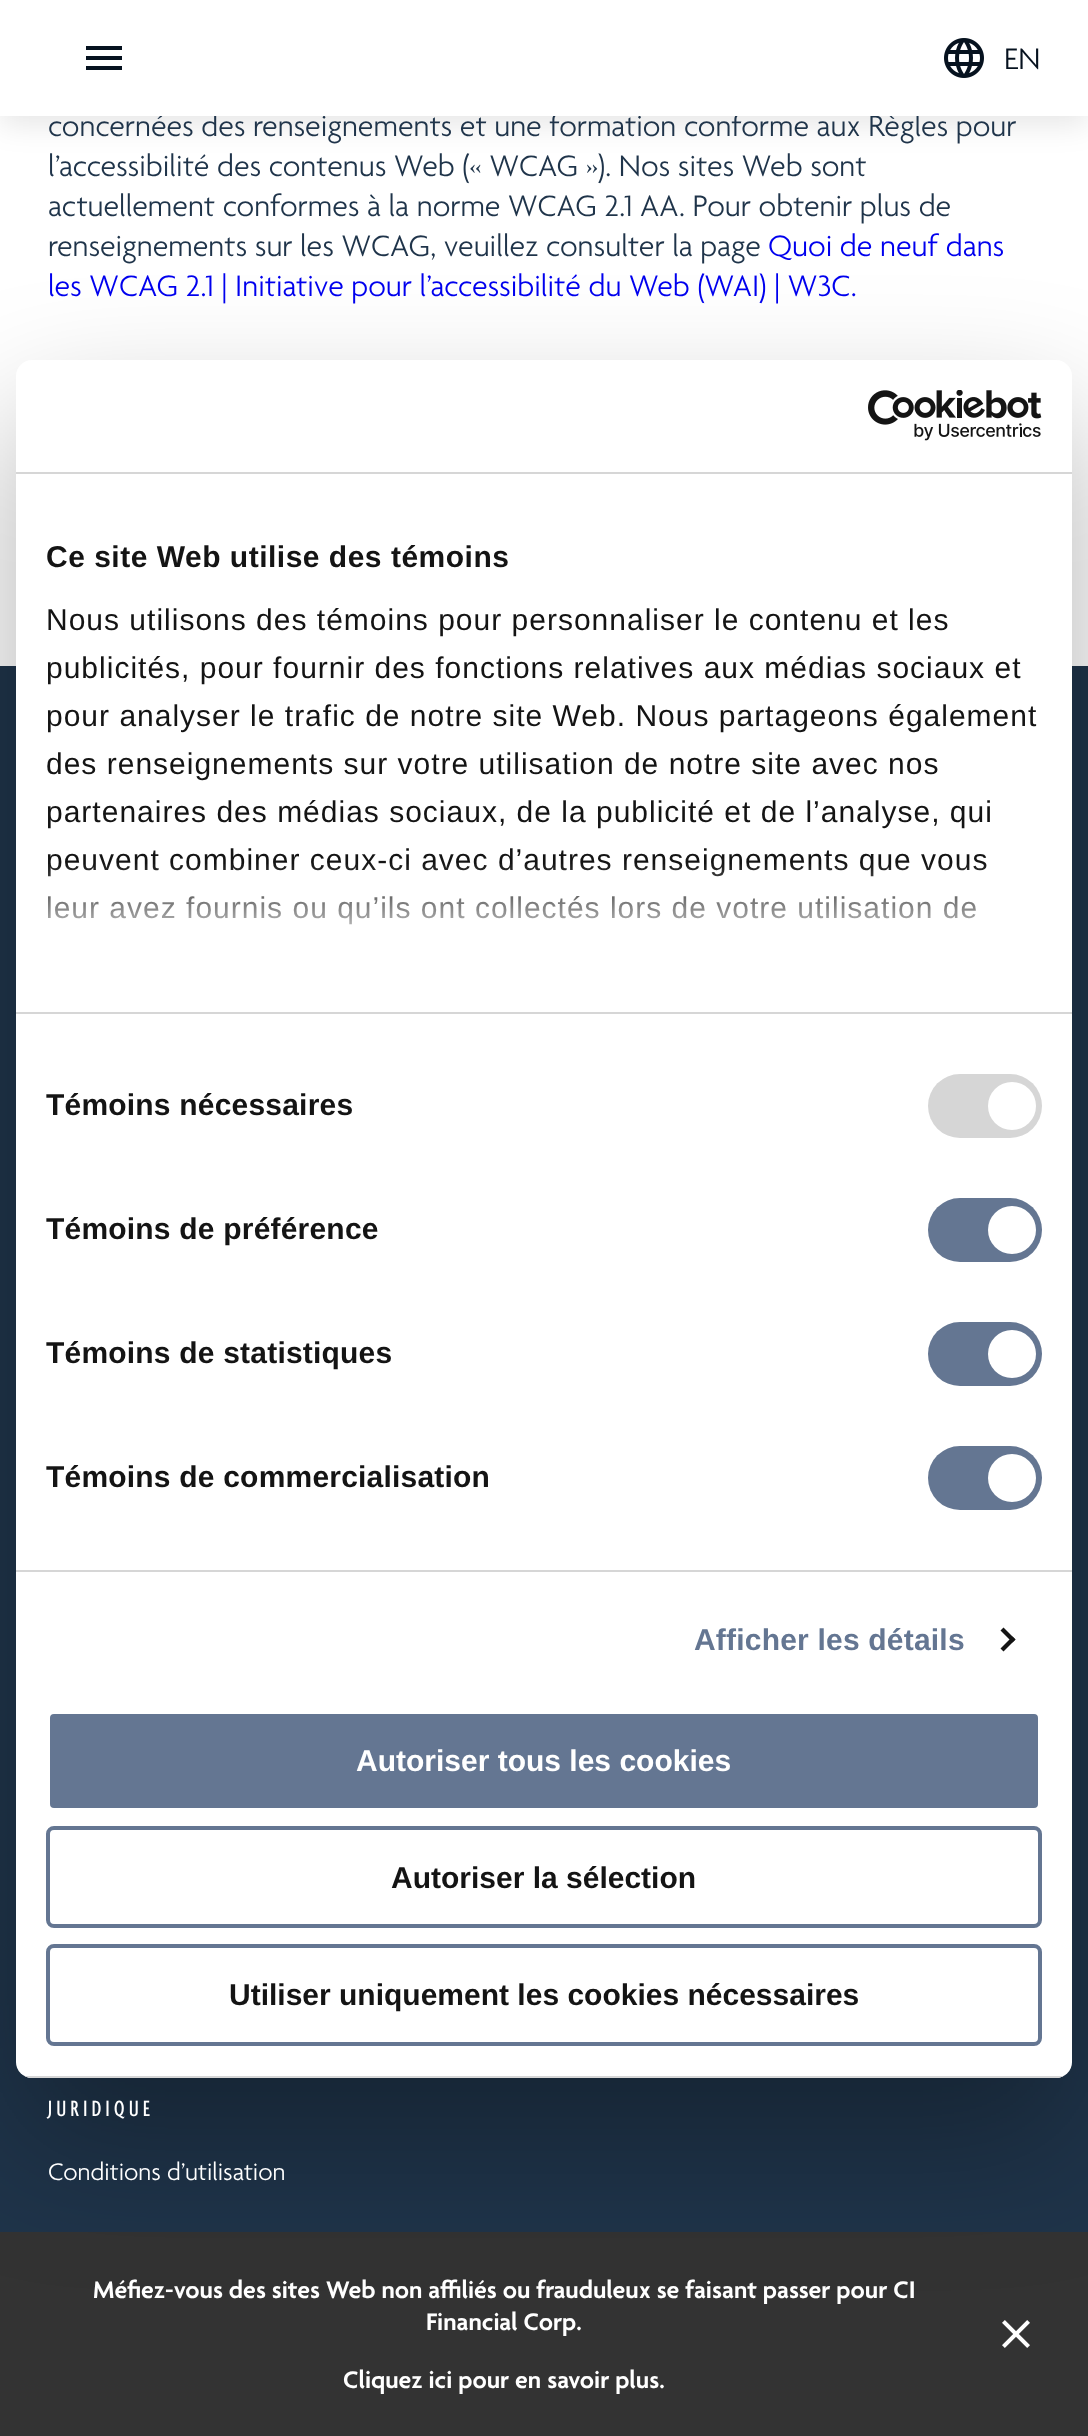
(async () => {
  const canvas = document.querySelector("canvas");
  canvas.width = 1088;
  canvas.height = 2436;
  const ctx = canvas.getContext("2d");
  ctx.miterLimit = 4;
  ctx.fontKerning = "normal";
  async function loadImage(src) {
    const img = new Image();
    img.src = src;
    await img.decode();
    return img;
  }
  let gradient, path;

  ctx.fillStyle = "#ffffff";
  ctx.fillRect(0, 0, 1088, 2436);
  ctx.fillStyle = "rgba(0, 0, 0, 0.1)";
  ctx.filter = "blur(15px)";
  ctx.beginPath();
  ctx.rect(0, 8, 1088, 116);
  ctx.fill();
  ctx.filter = "none";
  ctx.fillStyle = "#1f344a";
  ctx.fillRect(0, 666, 1088, 1566);
  ctx.fillStyle = "#333333";
  ctx.fillRect(0, 2232, 1088, 204);
  ctx.drawImage(await loadImage("img/2.png"), 1002, 2320, 28, 28);
  ctx.fillStyle = "rgba(0, 0, 0, 0.3)";
  ctx.filter = "blur(68px)";
  ctx.beginPath();
  ctx.roundRect(16, 424, 1056, 1718, 16);
  ctx.fill();
  ctx.filter = "none";
  ctx.fillStyle = "#ffffff";
  ctx.beginPath();
  ctx.roundRect(16, 360, 1056, 1718, 16);
  ctx.fill();
  ctx.fillStyle = "#d6d6d6";
  ctx.fillRect(16, 472, 1056, 2);
  ctx.drawImage(await loadImage("img/3.png"), 868, 390, 174, 51);
  ctx.fillRect(16, 1012, 1056, 2);
  ctx.fillRect(16, 1570, 1056, 2);
  ctx.beginPath();
  ctx.roundRect(928, 1074, 114, 64, 32);
  ctx.fill();
  ctx.fillStyle = "#ffffff";
  ctx.beginPath();
  ctx.arc(1012, 1106, 24, 0, Math.PI * 2);
  ctx.fill();
  ctx.fillStyle = "#647692";
  ctx.beginPath();
  ctx.roundRect(928, 1198, 114, 64, 32);
  ctx.fill();
  ctx.fillStyle = "#ffffff";
  ctx.beginPath();
  ctx.arc(1012, 1230, 24, 0, Math.PI * 2);
  ctx.fill();
  ctx.fillStyle = "#647692";
  ctx.beginPath();
  ctx.roundRect(928, 1322, 114, 64, 32);
  ctx.fill();
  ctx.fillStyle = "#ffffff";
  ctx.beginPath();
  ctx.arc(1012, 1354, 24, 0, Math.PI * 2);
  ctx.fill();
  ctx.fillStyle = "#647692";
  ctx.beginPath();
  ctx.roundRect(928, 1446, 114, 64, 32);
  ctx.fill();
  ctx.fillStyle = "#ffffff";
  ctx.beginPath();
  ctx.arc(1012, 1478, 24, 0, Math.PI * 2);
  ctx.fill();
  ctx.fillStyle = "#141414";
  path = new Path2D("M1003.5 1627.5L1015.5 1639.5L1012.5 1642.5L1000.5 1630.5Z");
  ctx.fill(path);
  path = new Path2D("M1012.5 1636.5L1015.5 1639.5L1003.5 1651.5L1000.5 1648.5Z");
  ctx.fill(path);
  ctx.save();
  ctx.beginPath();
  ctx.roundRect(16, 360, 1056, 1718, 16);
  ctx.clip();
  ctx.fillStyle = "#d6d6d6";
  ctx.fillRect(16, 2076, 1056, 2);
  ctx.restore();
  ctx.fillStyle = "#647692";
  ctx.beginPath();
  ctx.roundRect(48, 1712, 992, 98, 6);
  ctx.fill();
  ctx.strokeStyle = "#ffffff";
  ctx.lineWidth = 4;
  ctx.stroke();
  ctx.beginPath();
  ctx.roundRect(48, 1828, 992, 98, 6);
  ctx.strokeStyle = "#647692";
  ctx.stroke();
  ctx.beginPath();
  ctx.roundRect(48, 1946, 992, 98, 6);
  ctx.stroke();
  ctx.font = "300 32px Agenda";
  ctx.fillStyle = "#1f344a";
  ctx.fillText("concernées des renseignements et une formation conforme aux Règles pour", 48, 136);
  ctx.fillStyle = "#ffffff";
  ctx.fillRect(0, 0, 1088, 116);
  ctx.drawImage(await loadImage("img/1.png"), 944, 38, 40, 40);
  ctx.fillStyle = "#06121f";
  path = new Path2D("M86 70H122V66H86ZM86 60H122V56H86ZM86 46V50H122V46Z");
  ctx.fill(path);
  ctx.fillText("EN", 1004, 69);
  ctx.fillStyle = "#1f344a";
  for (const [text, x, y] of [
    ["l’accessibilité des contenus Web (« WCAG »). Nos sites Web sont", 48, 176],
    ["actuellement conformes à la norme WCAG 2.1 AA. Pour obtenir plus de", 48, 216],
    ["renseignements sur les WCAG, veuillez consulter la page", 48, 256],
  ]) {
    ctx.fillText(text, x, y);
  }
  ctx.fillStyle = "#0000ee";
  ctx.fillText("Quoi de neuf dans", 768, 256);
  ctx.fillText("les WCAG 2.1 | Initiative pour l’accessibilité du Web (WAI) | W3C.", 48, 296);
  ctx.letterSpacing = "4.5px";
  ctx.font = "500 24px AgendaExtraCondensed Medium";
  ctx.fillStyle = "#ffffff";
  ctx.fillText("JURIDIQUE", 48, 2116);
  ctx.letterSpacing = "0px";
  ctx.font = "300 26px Agenda";
  ctx.fillText("Conditions d’utilisation", 48, 2180);
  ctx.font = "600 26px Agenda";
  for (const [text, x, y] of [
    ["Méfiez-vous des sites Web non affiliés ou frauduleux se faisant passer pour CI", 93, 2298],
    ["Financial Corp.", 426, 2330],
    ["Cliquez ici pour en savoir plus.", 343, 2388],
  ]) {
    ctx.fillText(text, x, y);
  }
  ctx.letterSpacing = "0.5px";
  ctx.font = "bold 30px Liberation Sans";
  ctx.fillStyle = "#141414";
  ctx.fillText("Ce site Web utilise des témoins", 46, 567);
  ctx.letterSpacing = "1px";
  ctx.font = "30px Liberation Sans";
  for (const [text, x, y] of [
    ["Nous utilisons des témoins pour personnaliser le contenu et les", 46, 630],
    ["publicités, pour fournir des fonctions relatives aux médias sociaux et", 46, 678],
    ["pour analyser le trafic de notre site Web. Nous partageons également", 46, 726],
    ["des renseignements sur votre utilisation de notre site avec nos", 46, 774],
    ["partenaires des médias sociaux, de la publicité et de l’analyse, qui", 46, 822],
    ["peuvent combiner ceux-ci avec d’autres renseignements que vous", 46, 870],
    ["leur avez fournis ou qu’ils ont collectés lors de votre utilisation de", 46, 918],
  ]) {
    ctx.fillText(text, x, y);
  }
  gradient = ctx.createLinearGradient(531, 1012, 531, 862);
  gradient.addColorStop(0, "#ffffff");
  gradient.addColorStop(0.5, "rgba(255, 255, 255, 0.8)");
  gradient.addColorStop(1, "rgba(255, 255, 255, 0)");
  ctx.fillStyle = gradient;
  ctx.fillRect(48, 864, 939, 61);
  ctx.letterSpacing = "0.2px";
  ctx.font = "bold 30px Liberation Sans";
  ctx.fillStyle = "#141414";
  for (const [text, x, y] of [
    ["Témoins nécessaires", 46, 1115],
    ["Témoins de préférence", 46, 1239],
    ["Témoins de statistiques", 46, 1363],
    ["Témoins de commercialisation", 46, 1487],
  ]) {
    ctx.fillText(text, x, y);
  }
  ctx.fillStyle = "#647692";
  ctx.fillText("Afficher les détails", 694, 1650);
  ctx.letterSpacing = "0px";
  ctx.fillStyle = "#ffffff";
  ctx.fillText("Autoriser tous les cookies", 356, 1771);
  ctx.fillStyle = "#141414";
  ctx.fillText("Autoriser la sélection", 391, 1888);
  ctx.fillText("Utiliser uniquement les cookies nécessaires", 229, 2005);
})();
